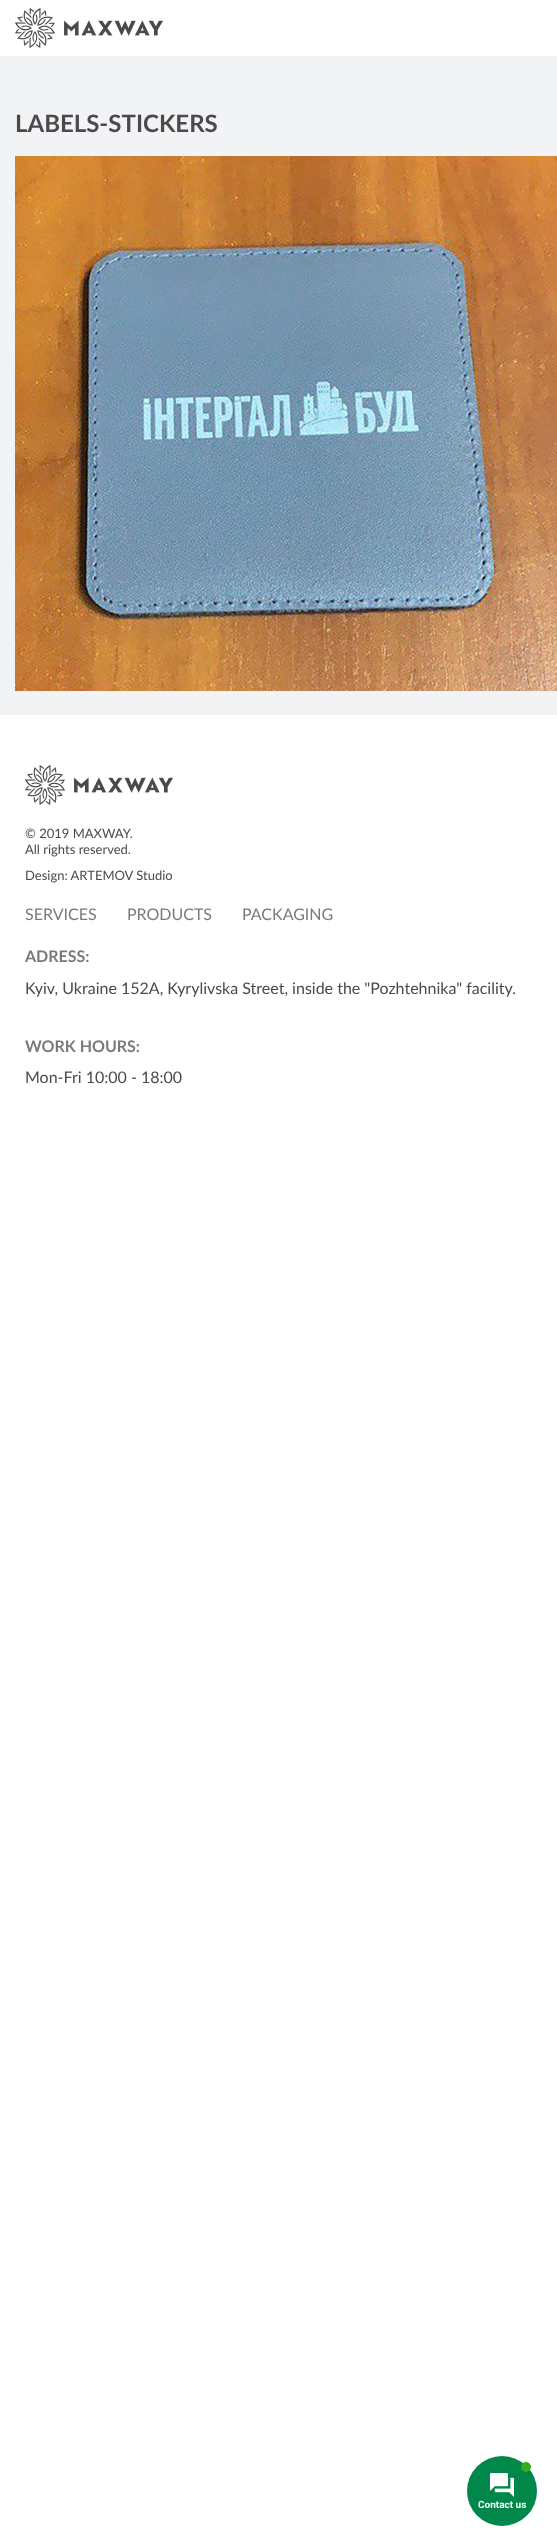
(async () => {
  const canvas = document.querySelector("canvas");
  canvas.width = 557;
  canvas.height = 2546;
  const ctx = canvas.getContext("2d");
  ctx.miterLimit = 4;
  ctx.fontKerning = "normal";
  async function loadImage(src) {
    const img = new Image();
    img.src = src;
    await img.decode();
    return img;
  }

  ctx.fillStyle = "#ffffff";
  ctx.fillRect(0, 0, 557, 2546);
  ctx.drawImage(await loadImage("img/1.png"), 15, 8, 148, 40);
  ctx.fillStyle = "#f1f3f4";
  ctx.fillRect(0, 56, 557, 659);
  ctx.drawImage(await loadImage("img/2.png"), 15, 156, 542, 535);
  ctx.drawImage(await loadImage("img/1.png"), 25, 765, 148, 40);
  ctx.fillStyle = "#008749";
  ctx.beginPath();
  ctx.arc(502, 2491, 35, 0, Math.PI * 2);
  ctx.fill();
  ctx.fillStyle = "#35ac19";
  ctx.beginPath();
  ctx.arc(526, 2467, 5, 0, Math.PI * 2);
  ctx.fill();
  ctx.drawImage(await loadImage("img/3.png"), 490, 2473, 24, 24);
  ctx.font = "bold 24px Lato";
  ctx.fillStyle = "#4a4a4d";
  ctx.fillText("LABELS-STICKERS", 15, 132);
  ctx.font = "13px Lato";
  for (const [text, x, y] of [
    ["© 2019 MAXWAY.", 25, 838],
    ["All rights reserved.", 25, 854],
    ["Design: ARTEMOV Studio", 25, 880],
  ]) {
    ctx.fillText(text, x, y);
  }
  ctx.font = "16px Lato";
  ctx.fillStyle = "#797a7a";
  for (const [text, x, y] of [
    ["SERVICES", 25, 920],
    ["PRODUCTS", 127, 920],
    ["PACKAGING", 242, 920],
  ]) {
    ctx.fillText(text, x, y);
  }
  ctx.font = "bold 16px Lato";
  ctx.fillText("ADRESS:", 25, 962);
  ctx.font = "16px Lato";
  ctx.fillStyle = "#4a4a4d";
  ctx.fillText("Kyiv, Ukraine 152A, Kyrylivska Street, inside the \"Pozhtehnika\" facility.", 25, 994);
  ctx.font = "bold 16px Lato";
  ctx.fillStyle = "#797a7a";
  ctx.fillText("WORK HOURS:", 25, 1052);
  ctx.font = "16px Lato";
  ctx.fillStyle = "#4a4a4d";
  ctx.fillText("Mon-Fri 10:00 - 18:00", 25, 1083);
  ctx.font = "bold 10px Roboto";
  ctx.fillStyle = "#ffffff";
  ctx.fillText("Contact us", 478, 2508);
})();
